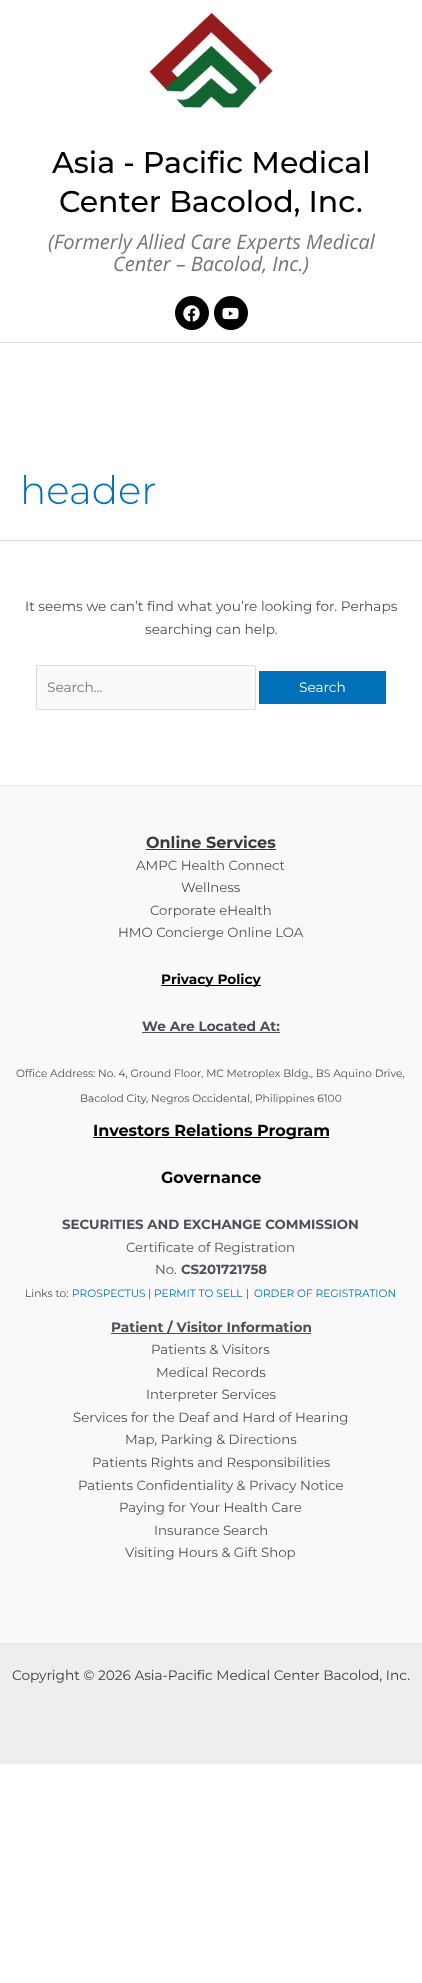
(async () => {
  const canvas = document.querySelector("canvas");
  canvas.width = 422;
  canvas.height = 1983;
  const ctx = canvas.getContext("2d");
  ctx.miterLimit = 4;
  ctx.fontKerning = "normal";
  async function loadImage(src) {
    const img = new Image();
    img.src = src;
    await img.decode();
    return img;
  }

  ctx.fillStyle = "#ffffff";
  ctx.fillRect(0, 0, 422, 1983);
  ctx.drawImage(await loadImage("img/1.png"), 149, 12, 124, 96);
  ctx.fillStyle = "#000000";
  ctx.beginPath();
  ctx.arc(192, 313, 17, 0, Math.PI * 2);
  ctx.fill();
  ctx.drawImage(await loadImage("img/2.png"), 183, 305, 17, 17);
  ctx.beginPath();
  ctx.arc(231, 313, 17, 0, Math.PI * 2);
  ctx.fill();
  ctx.drawImage(await loadImage("img/3.png"), 222, 307, 17, 13);
  ctx.fillStyle = "#e0e0e0";
  ctx.fillRect(0, 342, 422, 1);
  ctx.fillStyle = "#dddddd";
  ctx.fillRect(0, 540, 422, 1);
  ctx.fillStyle = "#fafafa";
  ctx.beginPath();
  ctx.roundRect(36.5, 665.5, 219, 44, 1.5);
  ctx.fill();
  ctx.strokeStyle = "#dddddd";
  ctx.stroke();
  for (const [x, y, w, h, color] of [
    [259, 671, 127, 33, "#0170b9"],
    [0, 786, 422, 857, "#f9f9f9"],
    [0, 785, 422, 1, "#e6e6e6"],
    [146, 849, 130, 1, "#3a3a3a"],
    [161, 985, 100, 1, "#000000"],
    [142, 1032, 138, 1, "#4b4f58"],
    [93, 1137, 236, 1, "#000000"],
    [111, 1333, 200, 1, "#4b4f58"],
    [0, 1644, 422, 120, "#eeeeee"],
    [0, 1643, 422, 1, "#e5e5e5"],
  ]) {
    ctx.fillStyle = color;
    ctx.fillRect(x, y, w, h);
  }
  ctx.font = "500 30px Montserrat";
  ctx.fillStyle = "#000000";
  ctx.fillText("Asia - Pacific Medical", 52, 173);
  ctx.fillText("Center Bacolod, Inc.", 59, 212);
  ctx.font = "italic 20px Open Sans";
  ctx.fillStyle = "#757575";
  ctx.fillText("(Formerly Allied Care Experts Medical", 48, 249);
  ctx.fillText("Center – Bacolod, Inc.)", 113, 271);
  ctx.font = "300 39px Montserrat";
  ctx.fillStyle = "#0170b9";
  ctx.fillText("header", 20, 504);
  ctx.font = "13.7px Montserrat";
  ctx.fillStyle = "#4b4f58";
  ctx.fillText("It seems we can’t find what you’re looking for. Perhaps", 25, 611);
  ctx.fillText("searching can help.", 145, 634);
  ctx.fillStyle = "#757575";
  ctx.fillText("Search...", 47, 692);
  ctx.fillStyle = "#ffffff";
  ctx.fillText("Search", 299, 692);
  ctx.font = "bold 16px Montserrat";
  ctx.fillStyle = "#3a3a3a";
  ctx.fillText("Online Services", 146, 848);
  ctx.font = "13.3px Montserrat";
  ctx.fillStyle = "#4b4f58";
  for (const [text, x, y] of [
    ["AMPC Health Connect", 136, 870],
    ["Wellness", 181, 892],
    ["Corporate eHealth", 150, 915],
    ["HMO Concierge Online LOA", 118, 937],
  ]) {
    ctx.fillText(text, x, y);
  }
  ctx.font = "bold 13.7px Montserrat";
  ctx.fillStyle = "#000000";
  ctx.fillText("Privacy Policy", 161, 984);
  ctx.fillStyle = "#4b4f58";
  ctx.fillText("We Are Located At:", 142, 1031);
  ctx.font = "10.65px Montserrat";
  ctx.fillText("Office Address: No. 4, Ground Floor, MC Metroplex Bldg., BS Aquino Drive,", 16, 1077);
  ctx.fillText("Bacolod City, Negros Occidental, Philippines 6100", 80, 1102);
  ctx.font = "bold 16px Montserrat";
  ctx.fillStyle = "#000000";
  ctx.fillText("Investors Relations Program", 93, 1136);
  ctx.fillText("Governance", 161, 1183);
  ctx.font = "bold 13.3px Montserrat";
  ctx.fillStyle = "#4b4f58";
  ctx.fillText("SECURITIES AND EXCHANGE COMMISSION", 62, 1229);
  ctx.font = "13.3px Montserrat";
  ctx.fillText("Certificate of Registration", 126, 1252);
  ctx.fillText("No.", 155, 1274);
  ctx.font = "bold 13.3px Montserrat";
  ctx.fillText("CS201721758", 181, 1274);
  ctx.font = "10.65px Montserrat";
  ctx.fillText("Links to:", 25, 1297);
  ctx.fillStyle = "#0170b9";
  ctx.fillText("PROSPECTUS", 72, 1297);
  ctx.fillStyle = "#4b4f58";
  ctx.fillText("|", 148, 1297);
  ctx.fillStyle = "#0170b9";
  ctx.fillText("PERMIT TO SELL", 154, 1297);
  ctx.fillStyle = "#4b4f58";
  ctx.fillText("|", 246, 1297);
  ctx.fillStyle = "#0170b9";
  ctx.fillText("ORDER OF REGISTRATION", 254, 1297);
  ctx.font = "bold 13.7px Montserrat";
  ctx.fillStyle = "#4b4f58";
  ctx.fillText("Patient / Visitor Information", 111, 1332);
  ctx.font = "13.3px Montserrat";
  for (const [text, x, y] of [
    ["Patients & Visitors", 151, 1354],
    ["Medical Records", 156, 1377],
    ["Interpreter Services", 146, 1399],
    ["Services for the Deaf and Hard of Hearing", 73, 1422],
    ["Map, Parking & Directions", 125, 1444],
    ["Patients Rights and Responsibilities", 92, 1467],
    ["Patients Confidentiality & Privacy Notice", 78, 1490],
    ["Paying for Your Health Care", 119, 1512],
    ["Insurance Search", 154, 1535],
    ["Visiting Hours & Gift Shop", 125, 1557],
  ]) {
    ctx.fillText(text, x, y);
  }
  ctx.font = "13.7px Montserrat";
  ctx.fillStyle = "#3a3a3a";
  ctx.fillText("Copyright © 2026 Asia-Pacific Medical Center Bacolod, Inc.", 12, 1680);
})();
